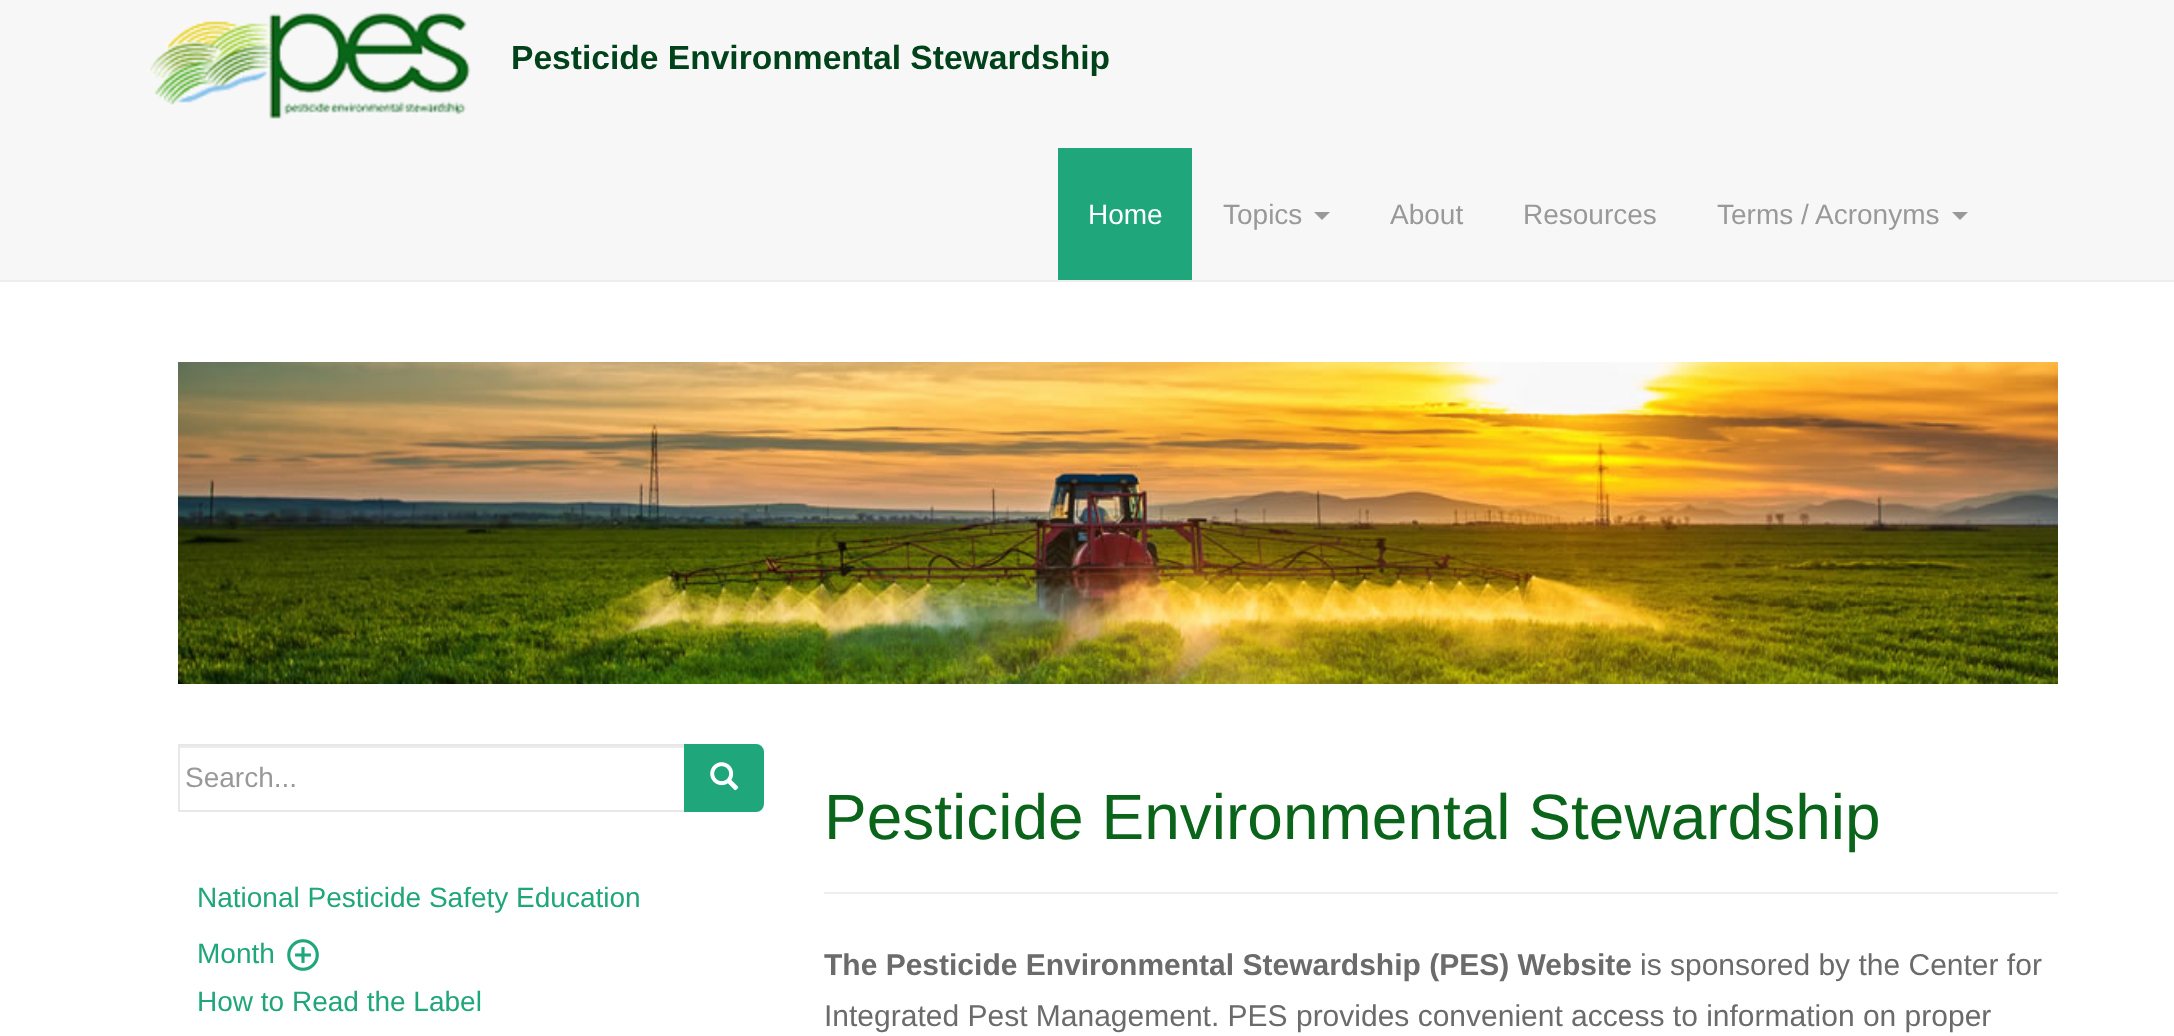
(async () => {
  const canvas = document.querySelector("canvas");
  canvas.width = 2174;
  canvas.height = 1036;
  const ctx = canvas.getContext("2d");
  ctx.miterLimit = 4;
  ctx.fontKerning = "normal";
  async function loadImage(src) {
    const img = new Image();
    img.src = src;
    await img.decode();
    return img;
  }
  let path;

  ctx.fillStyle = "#ffffff";
  ctx.fillRect(0, 0, 2174, 1036);
  ctx.fillStyle = "#f7f7f7";
  ctx.fillRect(0, 0, 2174, 280);
  ctx.fillStyle = "#eeeeee";
  ctx.fillRect(0, 280, 2174, 2);
  ctx.drawImage(await loadImage("img/1.png"), 148, 12, 323, 107);
  ctx.fillStyle = "#1fa67a";
  ctx.fillRect(1058, 148, 134, 132);
  ctx.fillStyle = "#999999";
  path = new Path2D("M1314 212H1330L1322 220Z");
  ctx.fill(path);
  path = new Path2D("M1952 212H1968L1960 220Z");
  ctx.fill(path);
  ctx.drawImage(await loadImage("img/2.png"), 178, 362, 1880, 322);
  ctx.fillStyle = "#ececec";
  ctx.fillRect(180, 746, 504, 2);
  ctx.strokeStyle = "#e8e8e8";
  ctx.lineWidth = 2;
  ctx.strokeRect(179, 745, 506, 66);
  ctx.fillStyle = "#1fa67a";
  ctx.beginPath();
  ctx.roundRect(685, 745, 78, 66, [0, 7, 7, 0]);
  ctx.fill();
  ctx.strokeStyle = "#1fa67a";
  ctx.stroke();
  ctx.drawImage(await loadImage("img/3.png"), 710, 762, 29, 29);
  ctx.drawImage(await loadImage("img/4.png"), 287, 939, 32, 32);
  ctx.fillStyle = "#eeeeee";
  ctx.fillRect(824, 892, 1234, 2);
  ctx.font = "bold 33.6px Liberation Sans";
  ctx.fillStyle = "#004219";
  ctx.fillText("Pesticide Environmental Stewardship", 511, 69);
  ctx.font = "28px Liberation Sans";
  ctx.fillStyle = "#ffffff";
  ctx.fillText("Home", 1088, 224);
  ctx.fillStyle = "#999999";
  for (const [text, x, y] of [
    ["Topics", 1223, 224],
    ["About", 1390, 224],
    ["Resources", 1523, 224],
    ["Terms / Acronyms", 1717, 224],
    ["Search...", 185, 787],
  ]) {
    ctx.fillText(text, x, y);
  }
  ctx.fillStyle = "#1fa67a";
  for (const [text, x, y] of [
    ["National Pesticide Safety Education", 197, 907],
    ["Month", 197, 963],
    ["How to Read the Label", 197, 1011],
  ]) {
    ctx.fillText(text, x, y);
  }
  ctx.font = "64px Liberation Sans";
  ctx.fillStyle = "#0a651a";
  ctx.fillText("Pesticide Environmental Stewardship", 824, 839);
  ctx.font = "bold 30px Liberation Sans";
  ctx.fillStyle = "#6b6b6b";
  ctx.fillText("The Pesticide Environmental Stewardship (PES) Website", 824, 975);
  ctx.font = "30px Liberation Sans";
  ctx.fillText("is sponsored by the Center for", 1640, 975);
  ctx.fillText("Integrated Pest Management. PES provides convenient access to information on proper", 824, 1026);
})();
